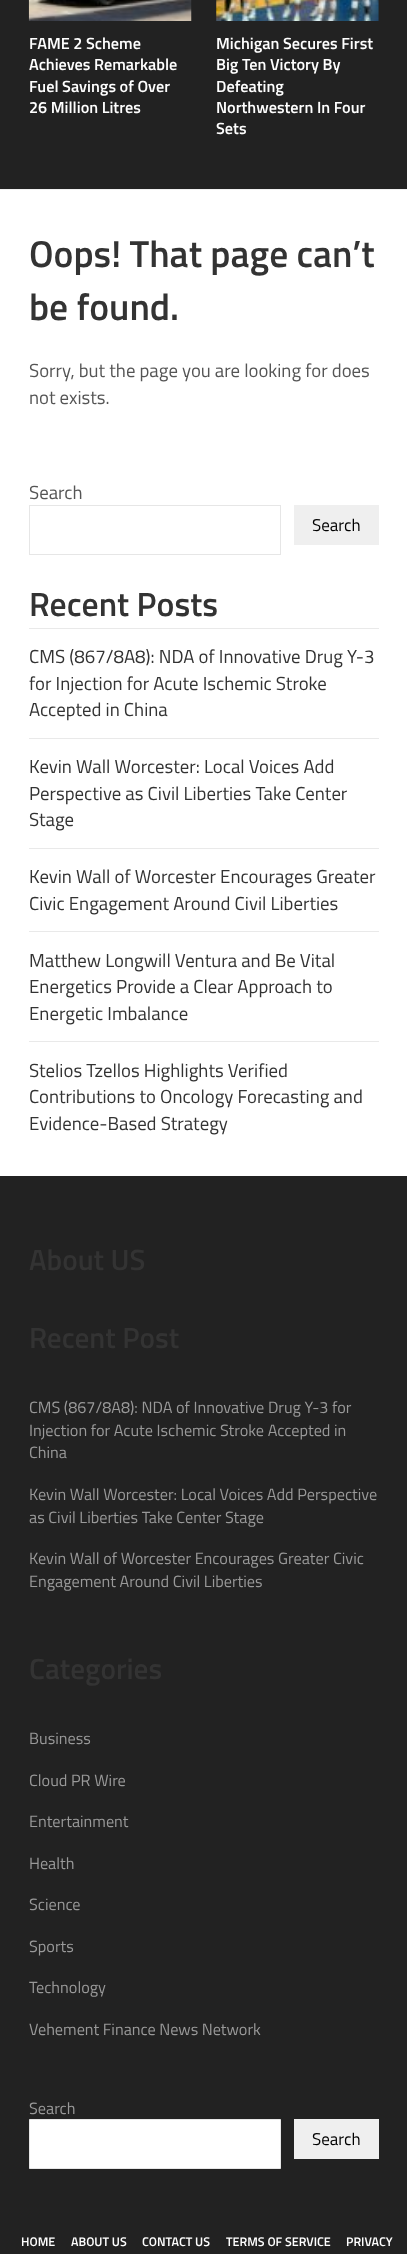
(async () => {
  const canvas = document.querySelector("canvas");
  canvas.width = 407;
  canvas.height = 2254;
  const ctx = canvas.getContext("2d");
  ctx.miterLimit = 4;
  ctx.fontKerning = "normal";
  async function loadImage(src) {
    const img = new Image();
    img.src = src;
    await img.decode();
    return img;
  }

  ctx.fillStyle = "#ffffff";
  ctx.fillRect(0, 0, 407, 2254);
  ctx.fillStyle = "#222222";
  ctx.fillRect(0, 0, 407, 189);
  ctx.fillStyle = "#f0f0f0";
  ctx.fillRect(0, 189, 407, 1);
  ctx.drawImage(await loadImage("img/1.png"), 28, 0, 164, 21);
  ctx.drawImage(await loadImage("img/2.png"), 216, 0, 163, 21);
  ctx.strokeStyle = "#e6e6e6";
  ctx.strokeRect(29.5, 505.5, 251, 49);
  for (const [x, y, w, h, color] of [
    [294, 505, 85, 40, "#efefef"],
    [29, 628, 350, 1, "#e9e9e9"],
    [29, 738, 350, 1, "#e9e9e9"],
    [29, 848, 350, 1, "#e9e9e9"],
    [29, 931, 350, 1, "#e9e9e9"],
    [29, 1041, 350, 1, "#e9e9e9"],
    [0, 1176, 407, 1078, "#222222"],
  ]) {
    ctx.fillStyle = color;
    ctx.fillRect(x, y, w, h);
  }
  ctx.fillStyle = "#ffffff";
  ctx.beginPath();
  ctx.rect(29.5, 2119.5, 251, 49);
  ctx.fill();
  ctx.stroke();
  ctx.fillStyle = "#efefef";
  ctx.fillRect(294, 2119, 85, 40);
  ctx.font = "600 16.25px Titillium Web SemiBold";
  ctx.fillStyle = "#ffffff";
  for (const [text, x, y] of [
    ["FAME 2 Scheme", 29, 49],
    ["Achieves Remarkable", 29, 70],
    ["Fuel Savings of Over", 29, 92],
    ["26 Million Litres", 29, 113],
    ["Michigan Secures First", 216, 49],
    ["Big Ten Victory By", 216, 70],
    ["Defeating", 216, 92],
    ["Northwestern In Four", 216, 113],
    ["Sets", 216, 134],
  ]) {
    ctx.fillText(text, x, y);
  }
  ctx.font = "600 37.5px Titillium Web SemiBold";
  ctx.fillStyle = "#333333";
  ctx.fillText("Oops! That page can’t", 29, 267);
  ctx.fillText("be found.", 29, 320);
  ctx.font = "18.75px Titillium Web";
  ctx.fillStyle = "#555555";
  for (const [text, x, y] of [
    ["Sorry, but the page you are looking for does", 29, 377],
    ["not exists.", 29, 404],
    ["Search", 29, 499],
  ]) {
    ctx.fillText(text, x, y);
  }
  ctx.font = "17px Titillium Web";
  ctx.fillStyle = "#000000";
  ctx.fillText("Search", 312, 531);
  ctx.font = "600 33.75px Titillium Web SemiBold";
  ctx.fillStyle = "#333333";
  ctx.fillText("Recent Posts", 29, 616);
  ctx.font = "18.75px Titillium Web";
  for (const [text, x, y] of [
    ["CMS (867/8A8): NDA of Innovative Drug Y-3", 29, 663],
    ["for Injection for Acute Ischemic Stroke", 29, 690],
    ["Accepted in China", 29, 716],
    ["Kevin Wall Worcester: Local Voices Add", 29, 773],
    ["Perspective as Civil Liberties Take Center", 29, 800],
    ["Stage", 29, 826],
    ["Kevin Wall of Worcester Encourages Greater", 29, 883],
    ["Civic Engagement Around Civil Liberties", 29, 910],
    ["Matthew Longwill Ventura and Be Vital", 29, 967],
    ["Energetics Provide a Clear Approach to", 29, 993],
    ["Energetic Imbalance", 29, 1020],
    ["Stelios Tzellos Highlights Verified", 29, 1077],
    ["Contributions to Oncology Forecasting and", 29, 1103],
    ["Evidence-Based Strategy", 29, 1130],
  ]) {
    ctx.fillText(text, x, y);
  }
  ctx.font = "600 29.25px Titillium Web SemiBold";
  ctx.fillText("About US", 29, 1270);
  ctx.fillText("Recent Post", 29, 1348);
  ctx.font = "16.25px Titillium Web";
  ctx.fillStyle = "#999999";
  for (const [text, x, y] of [
    ["CMS (867/8A8): NDA of Innovative Drug Y-3 for", 29, 1413],
    ["Injection for Acute Ischemic Stroke Accepted in", 29, 1436],
    ["China", 29, 1458],
    ["Kevin Wall Worcester: Local Voices Add Perspective", 29, 1500],
    ["as Civil Liberties Take Center Stage", 29, 1523],
    ["Kevin Wall of Worcester Encourages Greater Civic", 29, 1564],
    ["Engagement Around Civil Liberties", 29, 1587],
  ]) {
    ctx.fillText(text, x, y);
  }
  ctx.font = "600 29.25px Titillium Web SemiBold";
  ctx.fillStyle = "#333333";
  ctx.fillText("Categories", 29, 1679);
  ctx.font = "16.25px Titillium Web";
  ctx.fillStyle = "#999999";
  for (const [text, x, y] of [
    ["Business", 29, 1744],
    ["Cloud PR Wire", 29, 1786],
    ["Entertainment", 29, 1827],
    ["Health", 29, 1869],
    ["Science", 29, 1910],
    ["Sports", 29, 1952],
    ["Technology", 29, 1993],
    ["Vehement Finance News Network", 29, 2035],
    ["Search", 29, 2114],
  ]) {
    ctx.fillText(text, x, y);
  }
  ctx.font = "17px Titillium Web";
  ctx.fillStyle = "#000000";
  ctx.fillText("Search", 312, 2145);
  ctx.font = "600 12.5px Titillium Web SemiBold";
  ctx.fillStyle = "#ffffff";
  for (const [text, x, y] of [
    ["HOME", 21, 2246],
    ["ABOUT US", 71, 2246],
    ["CONTACT US", 142, 2246],
    ["TERMS OF SERVICE", 226, 2246],
    ["PRIVACY", 346, 2246],
  ]) {
    ctx.fillText(text, x, y);
  }
})();
